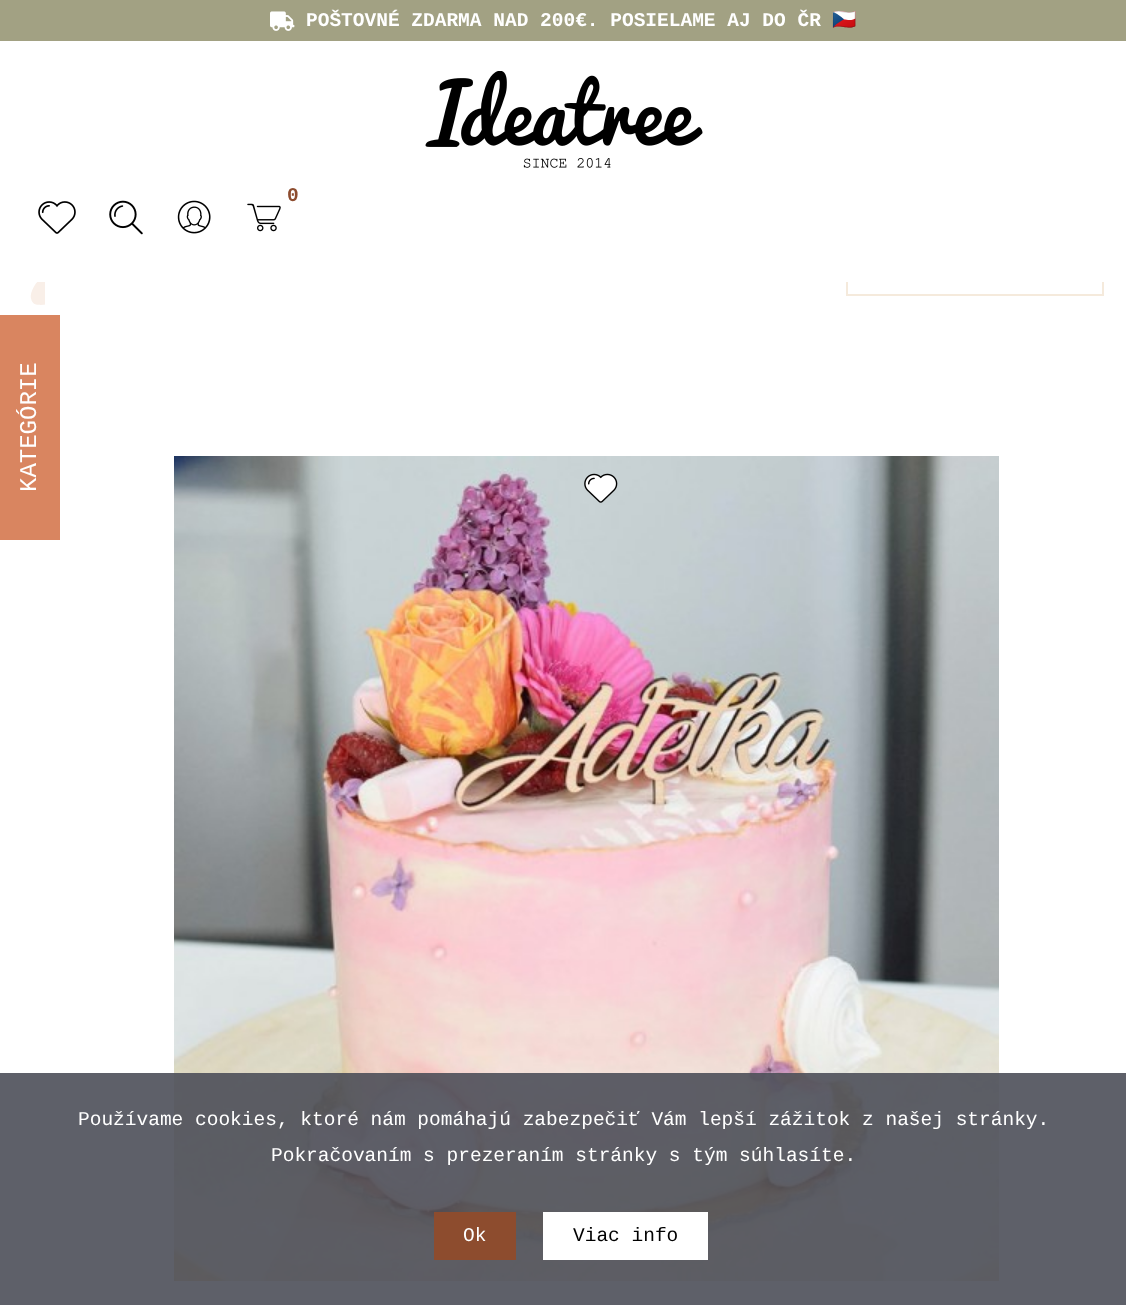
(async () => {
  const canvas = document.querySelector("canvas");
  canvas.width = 1126;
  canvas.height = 1305;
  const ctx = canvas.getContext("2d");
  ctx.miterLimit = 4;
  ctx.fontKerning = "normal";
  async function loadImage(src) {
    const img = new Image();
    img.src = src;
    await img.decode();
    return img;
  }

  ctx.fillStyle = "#ffffff";
  ctx.fillRect(0, 0, 1126, 1305);
  ctx.drawImage(await loadImage("img/1.png"), 30, 282, 15, 23);
  ctx.fillStyle = "#a2a183";
  ctx.fillRect(0, 0, 1126, 41);
  ctx.drawImage(await loadImage("img/2.png"), 270, 11, 25, 20);
  ctx.strokeStyle = "#f5eadc";
  ctx.lineWidth = 2;
  ctx.strokeRect(847, 234, 256, 61);
  ctx.fillStyle = "#ffffff";
  ctx.fillRect(846, 233, 258, 49);
  ctx.drawImage(await loadImage("img/3.png"), 425, 71, 278, 97);
  ctx.drawImage(await loadImage("img/4.png"), 247, 203, 34, 29);
  ctx.drawImage(await loadImage("img/5.png"), 38, 201, 38, 33);
  ctx.drawImage(await loadImage("img/6.png"), 109, 200, 34, 35);
  ctx.drawImage(await loadImage("img/7.png"), 177, 200, 34, 34);
  ctx.fillStyle = "#d98560";
  ctx.fillRect(0, 315, 60, 225);
  ctx.fillStyle = "rgba(255, 255, 255, 0.8)";
  ctx.fillRect(30, 282, 15, 23);
  ctx.drawImage(await loadImage("img/8.png"), 174, 456, 825, 825);
  ctx.drawImage(await loadImage("img/9.png"), 584, 473, 34, 30);
  for (const [x, y, w, h, color] of [
    [0, 1073, 1126, 232, "rgba(76, 79, 89, 0.9)"],
    [434, 1212, 82, 48, "#8d4c2e"],
    [543, 1212, 165, 48, "#ffffff"],
  ]) {
    ctx.fillStyle = color;
    ctx.fillRect(x, y, w, h);
  }
  ctx.font = "bold 19.5px Liberation Mono";
  ctx.fillText("POŠTOVNÉ ZDARMA NAD 200€. POSIELAME AJ DO ČR", 306, 26);
  ctx.font = "bold 19.5px Noto Color Emoji";
  ctx.fillText("🇨🇿", 832, 26);
  ctx.font = "bold 19.5px Liberation Mono";
  ctx.fillStyle = "#8d4c2e";
  ctx.fillText("0", 287, 201);
  ctx.font = "24px Liberation Mono";
  ctx.fillStyle = "#ffffff";
  ctx.save();
  ctx.translate(36, 492);
  ctx.rotate(-90 * Math.PI / 180);
  ctx.fillText("KATEGÓRIE", 0, 0);
  ctx.restore();
  ctx.font = "19.5px Liberation Mono";
  for (const [text, x, y] of [
    ["Používame cookies, ktoré nám pomáhajú zabezpečiť Vám lepší zážitok z našej stránky.", 78, 1125],
    ["Pokračovaním s prezeraním stránky s tým súhlasíte.", 271, 1161],
    ["Ok", 463, 1241],
  ]) {
    ctx.fillText(text, x, y);
  }
  ctx.fillStyle = "#000000";
  ctx.fillText("Viac info", 573, 1241);
})();
